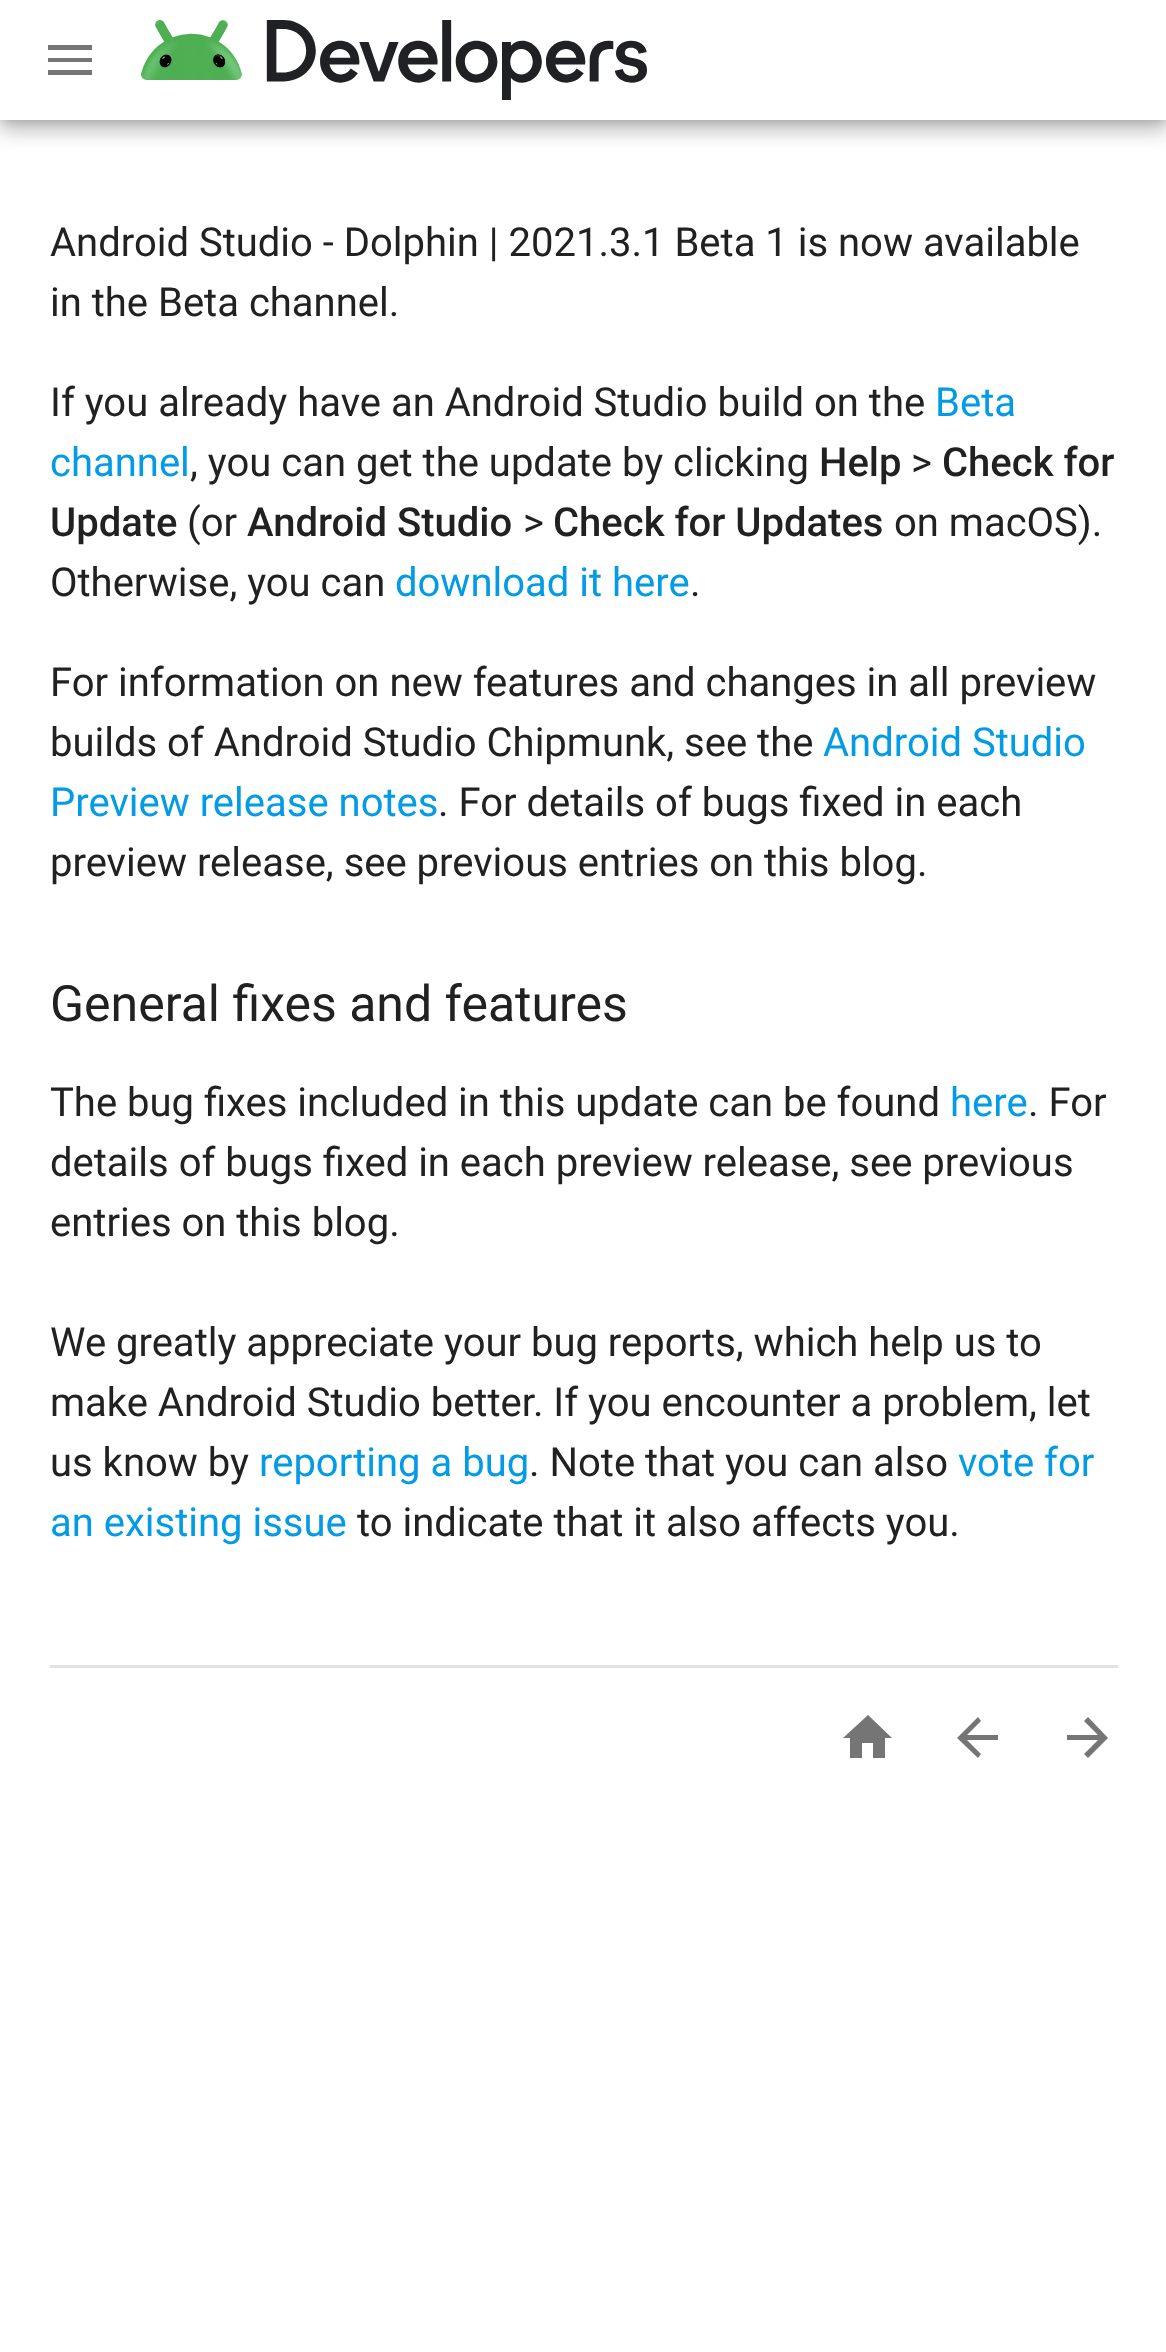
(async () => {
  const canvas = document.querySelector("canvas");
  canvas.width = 1166;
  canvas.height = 2352;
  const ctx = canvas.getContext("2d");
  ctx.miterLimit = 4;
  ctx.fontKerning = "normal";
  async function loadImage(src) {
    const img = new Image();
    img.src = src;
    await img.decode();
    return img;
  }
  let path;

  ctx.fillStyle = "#ffffff";
  ctx.fillRect(0, 0, 1166, 2352);
  ctx.fillStyle = "rgba(0, 0, 0, 0.28)";
  ctx.filter = "blur(10px)";
  ctx.beginPath();
  ctx.rect(0, 10, 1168, 120);
  ctx.fill();
  ctx.filter = "none";
  ctx.fillStyle = "rgba(0, 0, 0, 0.14)";
  ctx.filter = "blur(5px)";
  ctx.beginPath();
  ctx.rect(0, 0, 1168, 120);
  ctx.fill();
  ctx.filter = "none";
  ctx.fillStyle = "#ffffff";
  ctx.fillRect(0, 0, 1166, 120);
  ctx.fillStyle = "#757575";
  path = new Path2D("M48 45H92V50H48ZM48 62V58H92V62ZM48 75V70H92V75Z");
  ctx.fill(path);
  ctx.drawImage(await loadImage("img/1.png"), 141, 20, 506, 80);
  ctx.fillStyle = "#e0e0e0";
  ctx.fillRect(50, 1665, 1068, 3);
  ctx.fillStyle = "#757575";
  path = new Path2D("M862 1758H850V1738H843L868 1715L892 1738H885V1758H873V1743H862Z");
  ctx.fill(path);
  path = new Path2D("M998 1735V1740H967L981 1754L978 1758L957 1738L978 1717L981 1721L967 1735Z");
  ctx.fill(path);
  path = new Path2D("M1088 1717L1108 1738L1088 1758L1084 1754L1098 1740H1067V1735H1098L1084 1721Z");
  ctx.fill(path);
  ctx.font = "40px Roboto";
  ctx.fillStyle = "#212121";
  for (const [text, x, y] of [
    ["Android Studio - Dolphin | 2021.3.1 Beta 1 is now available", 50, 256],
    ["in the Beta channel.", 50, 316],
    ["If you already have an Android Studio build on the", 50, 416],
  ]) {
    ctx.fillText(text, x, y);
  }
  ctx.fillStyle = "#039be5";
  ctx.fillText("Beta", 935, 416);
  ctx.fillText("channel", 50, 476);
  ctx.fillStyle = "#212121";
  ctx.fillText(", you can get the update by clicking", 190, 476);
  ctx.font = "500 40px Roboto";
  ctx.fillText("Help", 819, 476);
  ctx.font = "40px Roboto";
  ctx.fillText(">", 911, 476);
  ctx.font = "500 40px Roboto";
  ctx.fillText("Check for", 942, 476);
  ctx.fillText("Update", 50, 536);
  ctx.font = "40px Roboto";
  ctx.fillText("(or", 187, 536);
  ctx.font = "500 40px Roboto";
  ctx.fillText("Android Studio", 247, 536);
  ctx.font = "40px Roboto";
  ctx.fillText(">", 523, 536);
  ctx.font = "500 40px Roboto";
  ctx.fillText("Check for Updates", 553, 536);
  ctx.font = "40px Roboto";
  ctx.fillText("on macOS).", 894, 536);
  ctx.fillText("Otherwise, you can", 50, 596);
  ctx.fillStyle = "#039be5";
  ctx.fillText("download it here", 395, 596);
  ctx.fillStyle = "#212121";
  for (const [text, x, y] of [
    [".", 690, 596],
    ["For information on new features and changes in all preview", 50, 696],
    ["builds of Android Studio Chipmunk, see the", 50, 756],
  ]) {
    ctx.fillText(text, x, y);
  }
  ctx.fillStyle = "#039be5";
  ctx.fillText("Android Studio", 823, 756);
  ctx.fillText("Preview release notes", 50, 816);
  ctx.fillStyle = "#212121";
  ctx.fillText(". For details of bugs fixed in each", 438, 816);
  ctx.fillText("preview release, see previous entries on this blog.", 50, 876);
  ctx.font = "50px Roboto";
  ctx.fillText("General fixes and features", 50, 1021);
  ctx.font = "40px Roboto";
  ctx.fillText("The bug fixes included in this update can be found", 50, 1116);
  ctx.fillStyle = "#039be5";
  ctx.fillText("here", 950, 1116);
  ctx.fillStyle = "#212121";
  for (const [text, x, y] of [
    [". For", 1028, 1116],
    ["details of bugs fixed in each preview release, see previous", 50, 1176],
    ["entries on this blog.", 50, 1236],
    ["We greatly appreciate your bug reports, which help us to", 50, 1356],
    ["make Android Studio better. If you encounter a problem, let", 50, 1416],
    ["us know by", 50, 1476],
  ]) {
    ctx.fillText(text, x, y);
  }
  ctx.fillStyle = "#039be5";
  ctx.fillText("reporting a bug", 259, 1476);
  ctx.fillStyle = "#212121";
  ctx.fillText(". Note that you can also", 529, 1476);
  ctx.fillStyle = "#039be5";
  ctx.fillText("vote for", 958, 1476);
  ctx.fillText("an existing issue", 50, 1536);
  ctx.fillStyle = "#212121";
  ctx.fillText("to indicate that it also affects you.", 357, 1536);
})();
